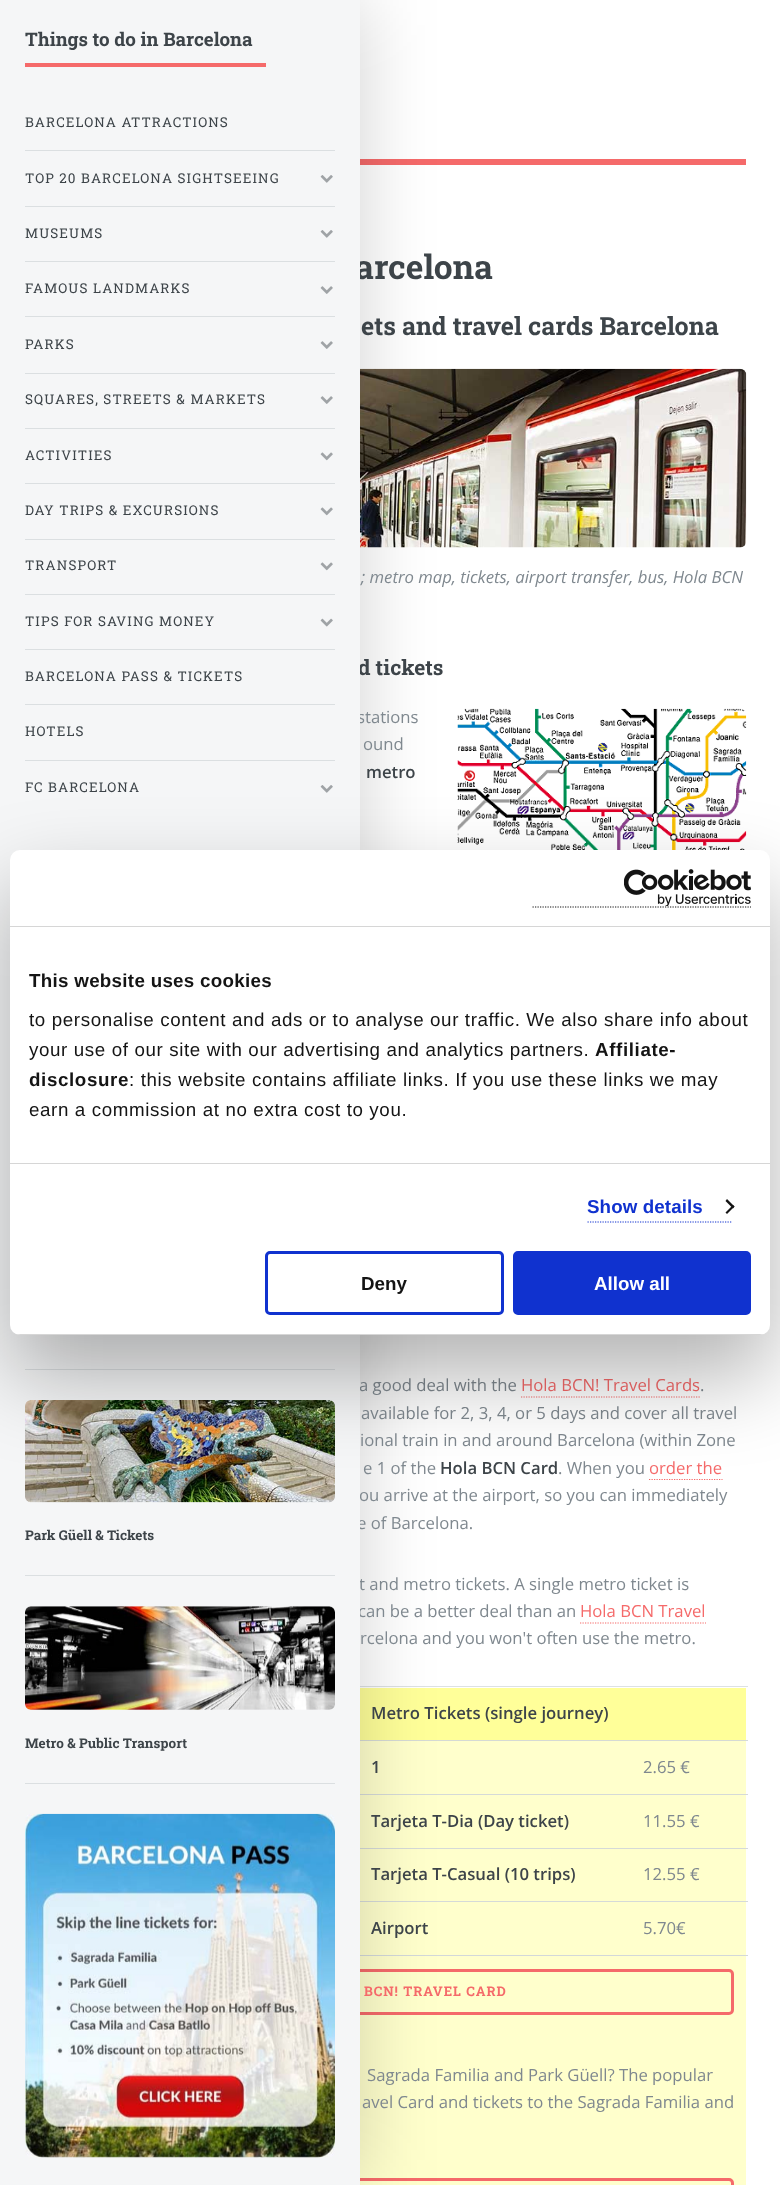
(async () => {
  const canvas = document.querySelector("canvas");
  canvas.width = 780;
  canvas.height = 2185;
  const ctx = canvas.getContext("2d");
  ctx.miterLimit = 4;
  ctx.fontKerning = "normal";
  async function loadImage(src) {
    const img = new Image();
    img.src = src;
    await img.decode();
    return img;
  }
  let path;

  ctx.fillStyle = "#ffffff";
  ctx.fillRect(0, 0, 780, 2185);
  for (const [x, y, w, h, color] of [
    [746, 1740, 2, 1, "#d5dadc"],
    [746, 1794, 2, 1, "#d5dadc"],
    [746, 1848, 2, 1, "#d5dadc"],
    [746, 1901, 2, 1, "#d5dadc"],
    [746, 1955, 2, 1, "#d3d8da"],
    [360, 159, 386, 6, "#f56a6a"],
  ]) {
    ctx.fillStyle = color;
    ctx.fillRect(x, y, w, h);
  }
  ctx.drawImage(await loadImage("img/8.png"), 360, 368, 387, 180);
  ctx.drawImage(await loadImage("img/9.png"), 457, 708, 290, 142);
  for (const [x, y, w, h, color] of [
    [360, 1686, 388, 1, "#dde1e3"],
    [360, 1688, 386, 52, "#ffff99"],
    [359, 1740, 387, 1, "#d5dad5"],
    [360, 1741, 386, 53, "#ffffcc"],
    [359, 1794, 387, 1, "#d5dad8"],
    [360, 1795, 386, 53, "#ffffcc"],
    [359, 1848, 387, 1, "#d5dad8"],
    [360, 1849, 386, 54, "#ffffcc"],
    [359, 1901, 387, 1, "#d5dad8"],
    [360, 1903, 386, 52, "#ffffcc"],
    [359, 1955, 387, 1, "#d3d8d9"],
    [360, 1956, 386, 229, "#ffffcc"],
  ]) {
    ctx.fillStyle = color;
    ctx.fillRect(x, y, w, h);
  }
  ctx.beginPath();
  ctx.roundRect(47.5, 1970.5, 685, 43, 3.5);
  ctx.strokeStyle = "#f56a6a";
  ctx.lineWidth = 3;
  ctx.stroke();
  ctx.beginPath();
  ctx.roundRect(47.5, 2179.5, 685, 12, 3.5);
  ctx.stroke();
  ctx.fillStyle = "rgba(0, 0, 0, 0.18)";
  ctx.filter = "blur(37.5px)";
  ctx.beginPath();
  ctx.rect(0, 0, 360, 2185);
  ctx.fill();
  ctx.filter = "none";
  path = new Path2D("M521 1397H700");
  ctx.lineWidth = 1.2;
  ctx.setLineDash([1.25, 1.25]);
  ctx.stroke(path);
  path = new Path2D("M649 1479.5H722.5");
  ctx.stroke(path);
  path = new Path2D("M580 1623H706");
  ctx.stroke(path);
  ctx.font = "bold 33.5px Roboto Slab";
  ctx.fillStyle = "#3d4449";
  ctx.fillText("arcelona", 355, 279);
  ctx.font = "bold 25px Roboto Slab";
  ctx.fillText("ets and travel cards Barcelona", 361, 335);
  ctx.font = "italic 16.7px Open Sans";
  ctx.fillStyle = "#7f888f";
  ctx.fillText("; metro map, tickets, airport transfer, bus, Hola BCN", 361, 583);
  ctx.font = "bold 21px Roboto Slab";
  ctx.fillStyle = "#3d4449";
  ctx.fillText("d tickets", 358, 675);
  ctx.font = "16.7px Open Sans";
  ctx.fillStyle = "#7f888f";
  ctx.fillText("stations", 357, 723);
  ctx.fillText("ound", 363, 750);
  ctx.font = "600 16.7px Open Sans";
  ctx.fillStyle = "#3d4449";
  ctx.fillText("metro", 366, 778);
  ctx.font = "16.7px Open Sans";
  ctx.fillStyle = "#7f888f";
  ctx.fillText("a good deal with the", 359, 1391);
  ctx.fillStyle = "#f56a6a";
  ctx.fillText("Hola BCN! Travel Cards", 521, 1391);
  ctx.fillStyle = "#7f888f";
  for (const [text, x, y] of [
    [".", 700, 1391],
    ["available for 2, 3, 4, or 5 days and cover all travel", 361, 1419],
    ["ional train in and around Barcelona (within Zone", 360, 1446],
    ["e 1 of the", 363, 1474],
  ]) {
    ctx.fillText(text, x, y);
  }
  ctx.font = "600 16.7px Open Sans";
  ctx.fillStyle = "#3d4449";
  ctx.fillText("Hola BCN Card", 440, 1474);
  ctx.font = "16.7px Open Sans";
  ctx.fillStyle = "#7f888f";
  ctx.fillText(". When you", 558, 1474);
  ctx.fillStyle = "#f56a6a";
  ctx.fillText("order the", 649, 1474);
  ctx.fillStyle = "#7f888f";
  for (const [text, x, y] of [
    ["ou arrive at the airport, so you can immediately", 359, 1501],
    ["e of Barcelona.", 357, 1529],
    ["t and metro tickets. A single metro ticket is", 359, 1590],
    ["can be a better deal than an", 358, 1617],
  ]) {
    ctx.fillText(text, x, y);
  }
  ctx.fillStyle = "#f5f6f7";
  ctx.fillRect(0, 0, 360, 2185);
  ctx.drawImage(await loadImage("img/7.png"), 25, 1813, 310, 345);
  ctx.drawImage(await loadImage("img/6.png"), 25, 1606, 310, 104);
  ctx.drawImage(await loadImage("img/5.png"), 25, 1400, 310, 103);
  ctx.drawImage(await loadImage("img/1.png"), 320, 785, 13, 8);
  ctx.letterSpacing = "1.1px";
  ctx.font = "13.5px Roboto Slab";
  ctx.fillStyle = "#3d4449";
  ctx.fillText("FC BARCELONA", 25, 792);
  ctx.drawImage(await loadImage("img/4.png"), 320, 618, 13, 9);
  ctx.fillText("TIPS FOR SAVING MONEY", 25, 626);
  ctx.drawImage(await loadImage("img/3.png"), 320, 562, 13, 9);
  ctx.fillText("TRANSPORT", 25, 570);
  ctx.drawImage(await loadImage("img/3.png"), 320, 507, 13, 9);
  ctx.fillText("DAY TRIPS & EXCURSIONS", 25, 515);
  ctx.drawImage(await loadImage("img/3.png"), 320, 452, 13, 9);
  ctx.fillText("ACTIVITIES", 25, 460);
  ctx.drawImage(await loadImage("img/2.png"), 320, 396, 13, 8);
  ctx.fillText("SQUARES, STREETS & MARKETS", 25, 404);
  ctx.drawImage(await loadImage("img/2.png"), 320, 341, 13, 8);
  ctx.fillText("PARKS", 25, 349);
  ctx.drawImage(await loadImage("img/2.png"), 320, 286, 13, 8);
  ctx.fillText("FAMOUS LANDMARKS", 25, 293);
  ctx.drawImage(await loadImage("img/1.png"), 320, 230, 13, 8);
  ctx.fillText("MUSEUMS", 25, 238);
  ctx.drawImage(await loadImage("img/1.png"), 320, 175, 13, 8);
  ctx.fillText("TOP 20 BARCELONA SIGHTSEEING", 25, 183);
  ctx.letterSpacing = "0px";
  ctx.font = "bold 13.5px Roboto Slab";
  ctx.fillText("Metro & Public Transport", 25, 1748);
  ctx.fillText("Park Güell & Tickets", 25, 1540);
  ctx.letterSpacing = "1.1px";
  ctx.font = "13.5px Roboto Slab";
  for (const [text, x, y] of [
    ["HOTELS", 25, 736],
    ["BARCELONA PASS & TICKETS", 25, 681],
    ["BARCELONA ATTRACTIONS", 25, 127],
  ]) {
    ctx.fillText(text, x, y);
  }
  ctx.letterSpacing = "0px";
  ctx.font = "bold 18.75px Roboto Slab";
  ctx.fillText("Things to do in Barcelona", 25, 46);
  for (const [x, y, w, h, color] of [
    [25, 63, 241, 4, "#f56a6a"],
    [25, 1783, 310, 1, "#dbdfe1"],
    [25, 1575, 310, 1, "#dbdfe1"],
    [25, 1369, 310, 1, "#dbdfe1"],
    [25, 760, 310, 1, "#dbdfe1"],
    [25, 704, 310, 1, "#dbdfe1"],
    [25, 649, 310, 1, "#dbdfe1"],
    [25, 594, 310, 1, "#dbdfe1"],
    [25, 539, 310, 1, "#dbdfe1"],
    [25, 483, 310, 1, "#dbdfe1"],
    [25, 428, 310, 1, "#dbdfe1"],
    [25, 373, 310, 1, "#dbdfe1"],
    [25, 316, 310, 1, "#dbdfe1"],
    [25, 261, 310, 1, "#dbdfe1"],
    [25, 206, 310, 1, "#dbdfe1"],
    [25, 150, 310, 1, "#dbdfe1"],
  ]) {
    ctx.fillStyle = color;
    ctx.fillRect(x, y, w, h);
  }
  ctx.font = "16.7px Open Sans";
  ctx.fillStyle = "#f56a6a";
  ctx.fillText("Hola BCN Travel", 580, 1617);
  ctx.fillStyle = "#7f888f";
  ctx.fillText("rcelona and you won't often use the metro.", 360, 1644);
  ctx.font = "600 16.7px Open Sans";
  ctx.fillStyle = "#3d4449";
  ctx.fillText("Metro Tickets (single journey)", 371, 1719);
  ctx.fillText("1", 371, 1773);
  ctx.font = "16.7px Open Sans";
  ctx.fillStyle = "#7f888f";
  ctx.fillText("2.65 €", 643, 1773);
  ctx.font = "600 16.7px Open Sans";
  ctx.fillStyle = "#3d4449";
  ctx.fillText("Tarjeta T-Dia (Day ticket)", 371, 1827);
  ctx.font = "16.7px Open Sans";
  ctx.fillStyle = "#7f888f";
  ctx.fillText("11.55 €", 643, 1827);
  ctx.font = "600 16.7px Open Sans";
  ctx.fillStyle = "#3d4449";
  ctx.fillText("Tarjeta T-Casual (10 trips)", 371, 1880);
  ctx.font = "16.7px Open Sans";
  ctx.fillStyle = "#7f888f";
  ctx.fillText("12.55 €", 643, 1880);
  ctx.font = "600 16.7px Open Sans";
  ctx.fillStyle = "#3d4449";
  ctx.fillText("Airport", 371, 1934);
  ctx.font = "16.7px Open Sans";
  ctx.fillStyle = "#7f888f";
  ctx.fillText("5.70€", 643, 1934);
  ctx.letterSpacing = "1px";
  ctx.font = "bold 13.25px Roboto Slab";
  ctx.fillStyle = "#f56a6a";
  ctx.fillText("BCN! TRAVEL CARD", 364, 1996);
  ctx.letterSpacing = "0px";
  ctx.font = "16.7px Open Sans";
  ctx.fillStyle = "#7f888f";
  ctx.fillText("Sagrada Familia and Park Güell? The popular", 367, 2081);
  ctx.fillText("avel Card and tickets to the Sagrada Familia and", 362, 2108);
  ctx.fillStyle = "rgba(0, 0, 0, 0.3)";
  ctx.filter = "blur(42.5px)";
  ctx.beginPath();
  ctx.roundRect(10, 890, 760, 485, 10);
  ctx.fill();
  ctx.filter = "none";
  ctx.fillStyle = "#ffffff";
  ctx.beginPath();
  ctx.roundRect(10, 850, 760, 485, 10);
  ctx.fill();
  ctx.fillStyle = "#d6d6d6";
  ctx.fillRect(10, 926, 760, 1);
  path = new Path2D("M532.5 907H751");
  ctx.strokeStyle = "#141414";
  ctx.stroke(path);
  ctx.drawImage(await loadImage("img/10.png"), 624, 869, 127, 37);
  ctx.fillRect(10, 1163, 760, 1);
  ctx.letterSpacing = "0.3px";
  ctx.font = "bold 18.75px Liberation Sans";
  ctx.fillStyle = "#141414";
  ctx.fillText("This website uses cookies", 29, 987);
  ctx.letterSpacing = "0.62px";
  ctx.font = "18.75px Liberation Sans";
  ctx.fillText("to personalise content and ads or to analyse our traffic. We also share info about", 29, 1026);
  ctx.fillText("your use of our site with our advertising and analytics partners.", 29, 1056);
  ctx.font = "bold 18.75px Liberation Sans";
  ctx.fillText("Affiliate-", 595, 1056);
  ctx.fillText("disclosure", 29, 1086);
  ctx.font = "18.75px Liberation Sans";
  ctx.fillText(": this website contains affiliate links. If you use these links we may", 129, 1086);
  ctx.fillText("earn a commission at no extra cost to you.", 29, 1116);
  path = new Path2D("M587.5 1222H732.5");
  ctx.strokeStyle = "#1032cf";
  ctx.stroke(path);
  ctx.letterSpacing = "0.1px";
  ctx.font = "bold 18.75px Liberation Sans";
  ctx.fillStyle = "#1032cf";
  ctx.fillText("Show details", 587, 1213);
  ctx.fillStyle = "#141414";
  path = new Path2D("M727 1199L734.5 1206.5L733 1208.5L725.5 1201Z");
  ctx.fill(path);
  path = new Path2D("M733 1205L734.5 1206.5L727 1214L725.5 1212.5Z");
  ctx.fill(path);
  ctx.save();
  ctx.beginPath();
  ctx.roundRect(10, 850, 760, 485, 10);
  ctx.clip();
  ctx.fillStyle = "#d6d6d6";
  ctx.fillRect(10, 1334, 760, 1);
  ctx.restore();
  ctx.beginPath();
  ctx.roundRect(266.5, 1252.5, 236, 61, 3.5);
  ctx.lineWidth = 3;
  ctx.setLineDash([]);
  ctx.stroke();
  ctx.letterSpacing = "0px";
  ctx.fillText("Deny", 361, 1290);
  ctx.fillStyle = "#1032cf";
  ctx.beginPath();
  ctx.roundRect(514.5, 1252.5, 235, 61, 3.5);
  ctx.fill();
  ctx.stroke();
  ctx.fillStyle = "#ffffff";
  ctx.fillText("Allow all", 594, 1290);
})();
